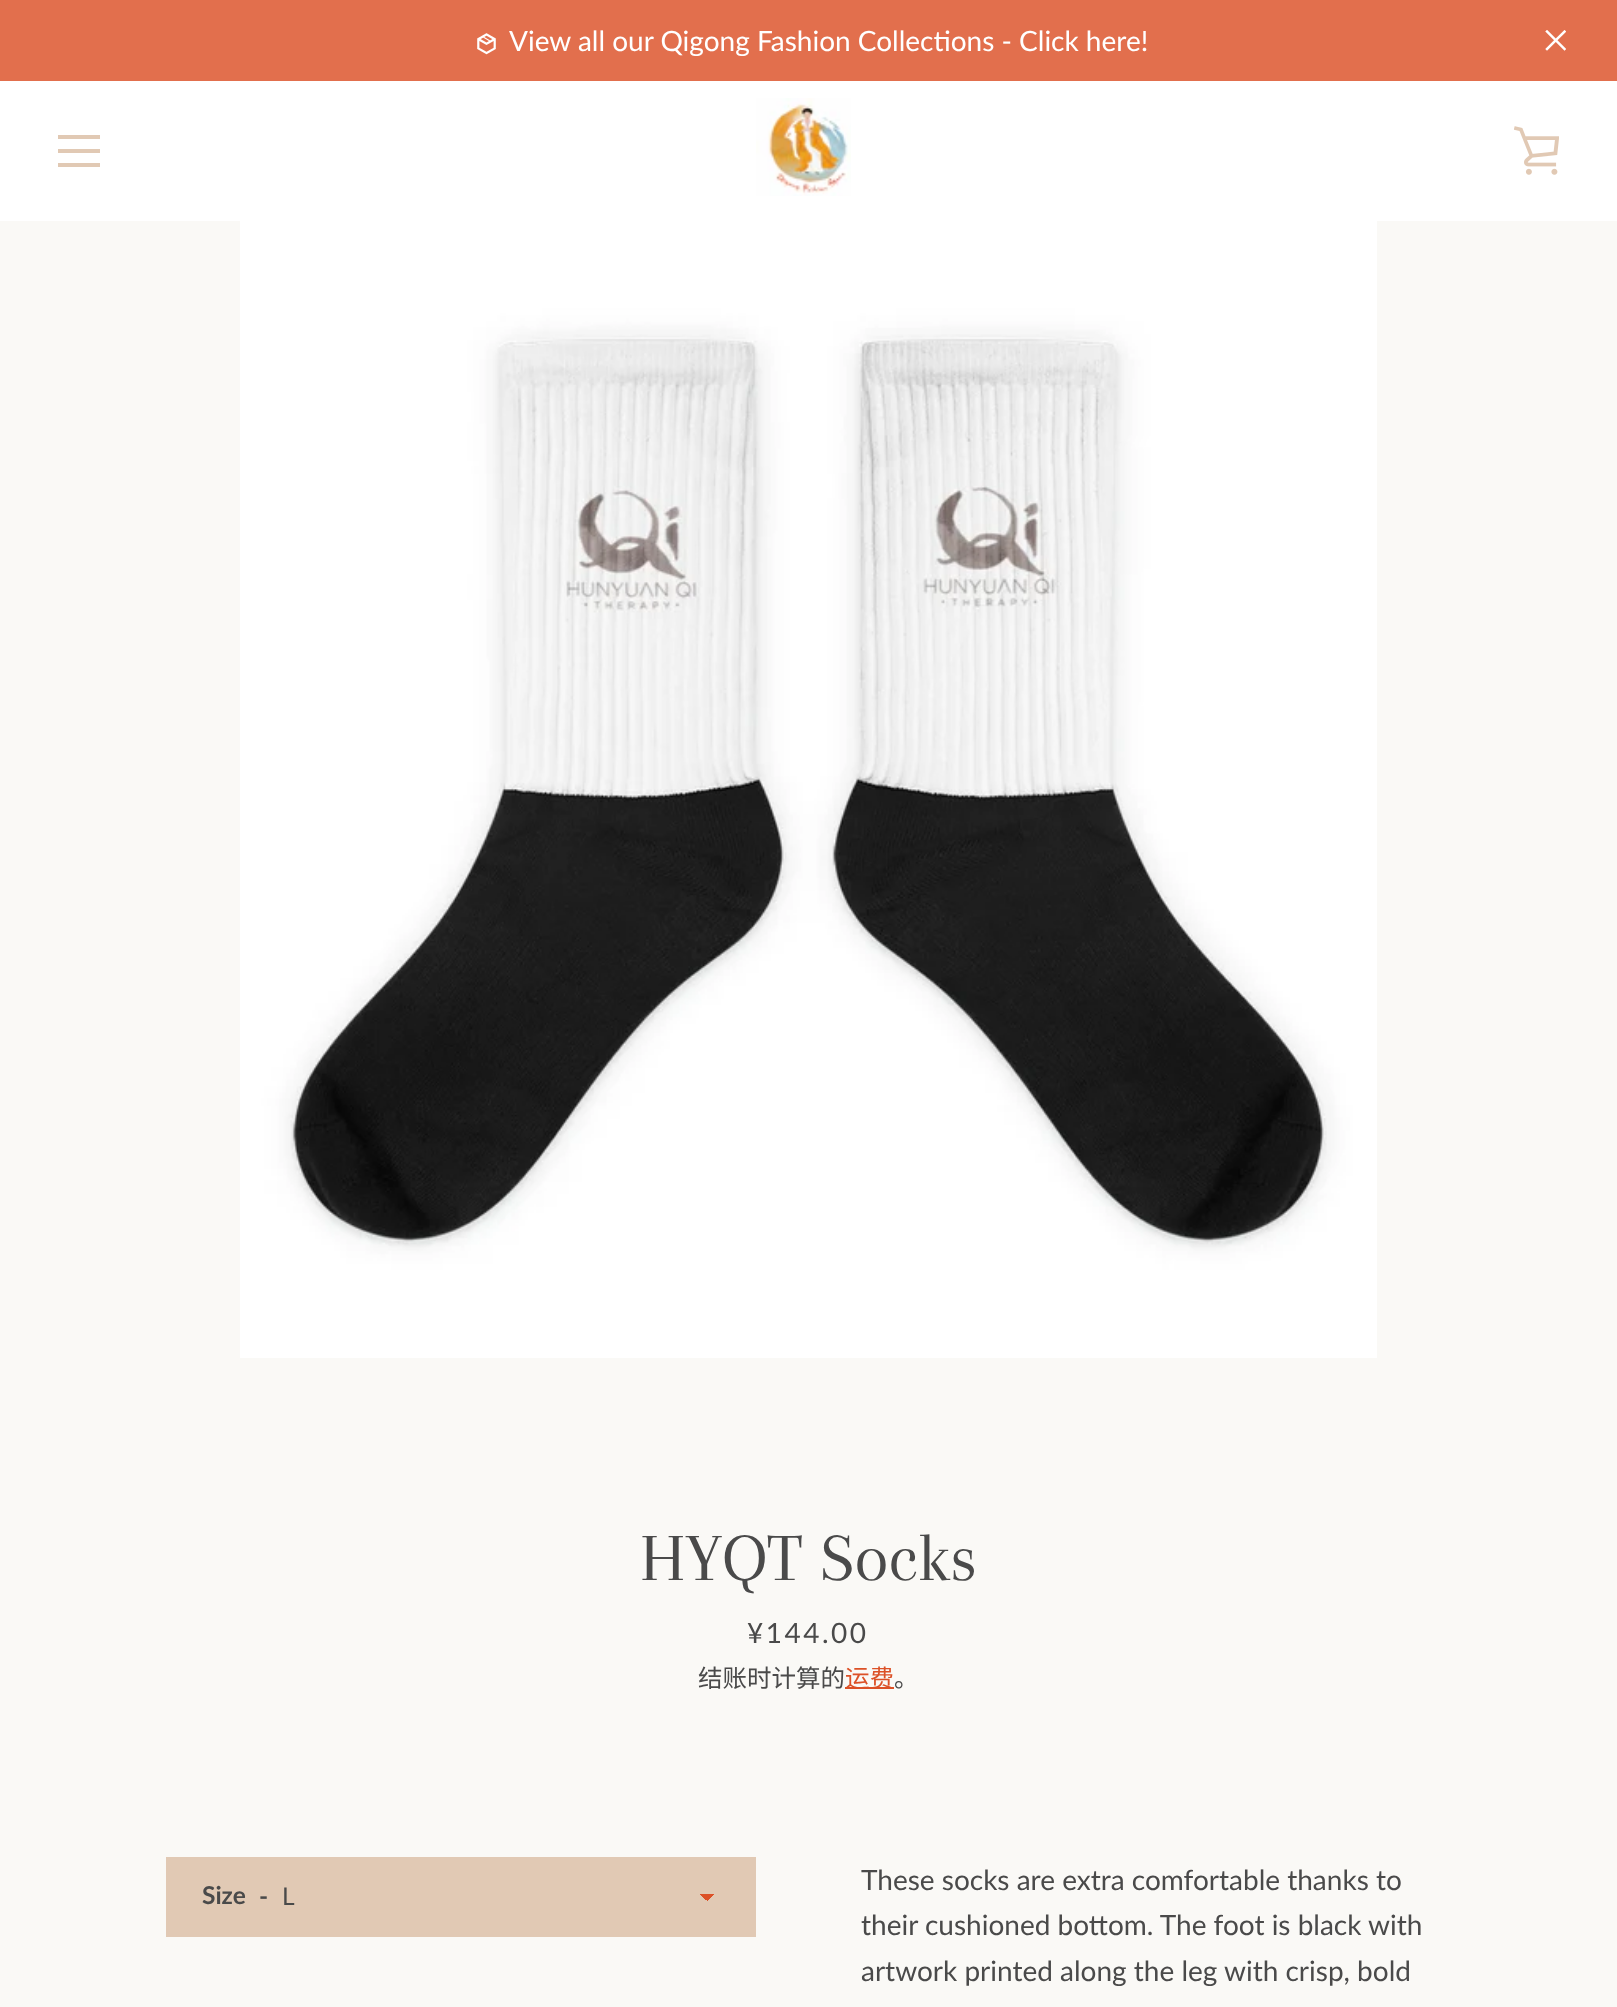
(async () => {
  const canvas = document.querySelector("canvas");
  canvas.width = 1617;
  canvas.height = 2007;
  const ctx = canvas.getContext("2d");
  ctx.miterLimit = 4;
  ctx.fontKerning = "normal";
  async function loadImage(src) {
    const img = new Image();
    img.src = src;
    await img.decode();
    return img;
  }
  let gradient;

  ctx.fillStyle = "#faf9f6";
  ctx.fillRect(0, 0, 1617, 2007);
  ctx.fillStyle = "#ffffff";
  ctx.fillRect(0, 81, 1617, 140);
  ctx.fillStyle = "#e26f4d";
  ctx.fillRect(0, 0, 1617, 81);
  ctx.drawImage(await loadImage("img/1.png"), 477, 33, 19, 22);
  ctx.drawImage(await loadImage("img/2.png"), 1545, 30, 21, 21);
  for (const [x, y, w, h, color] of [
    [58, 135, 42, 4, "#e1c9b4"],
    [58, 149, 42, 4, "#e1c9b4"],
    [58, 163, 42, 4, "#e1c9b4"],
  ]) {
    ctx.fillStyle = color;
    ctx.fillRect(x, y, w, h);
  }
  ctx.drawImage(await loadImage("img/3.png"), 756, 98, 95, 98);
  ctx.drawImage(await loadImage("img/4.png"), 1514, 126, 45, 49);
  ctx.drawImage(await loadImage("img/5.png"), 240, 221, 1137, 1137);
  ctx.fillStyle = "#dc5127";
  ctx.fillRect(845, 1687, 49, 2);
  ctx.fillStyle = "#e1c9b4";
  ctx.fillRect(166, 1857, 590, 80);
  gradient = ctx.createLinearGradient(707, 1894, 714, 1901);
  gradient.addColorStop(0.5, "#dc5127");
  gradient.addColorStop(0.5, "#e1c9b4");
  ctx.fillStyle = gradient;
  ctx.fillRect(707, 1894, 7, 7);
  gradient = ctx.createLinearGradient(700, 1901, 707, 1894);
  gradient.addColorStop(0.5, "#e1c9b4");
  gradient.addColorStop(0.5, "#dc5127");
  ctx.fillStyle = gradient;
  ctx.fillRect(700, 1894, 7, 6);
  ctx.font = "28px Lato";
  ctx.fillStyle = "#ffffff";
  ctx.fillText("View all our Qigong Fashion Collections - Click here!", 509, 51);
  ctx.font = "70px Arapey";
  ctx.fillStyle = "#4a4a4a";
  ctx.fillText("HYQT Socks", 640, 1580);
  ctx.letterSpacing = "2.5px";
  ctx.font = "28px Lato";
  ctx.fillText("¥144.00", 747, 1643);
  ctx.letterSpacing = "0px";
  ctx.font = "24.5px Noto Sans CJK SC";
  ctx.fillText("结账时计算的", 698, 1687);
  ctx.fillStyle = "#dc5127";
  ctx.fillText("运费", 845, 1687);
  ctx.fillStyle = "#4a4a4a";
  ctx.fillText("。", 894, 1687);
  ctx.font = "bold 24.5px Lato";
  ctx.fillText("Size", 202, 1904);
  ctx.fillText("-", 259, 1905);
  ctx.font = "24.5px Lato";
  ctx.fillText("L", 282, 1905);
  ctx.font = "28px Lato";
  for (const [text, x, y] of [
    ["These socks are extra comfortable thanks to", 861, 1890],
    ["their cushioned bottom. The foot is black with", 861, 1935],
    ["artwork printed along the leg with crisp, bold", 861, 1981],
  ]) {
    ctx.fillText(text, x, y);
  }
})();
